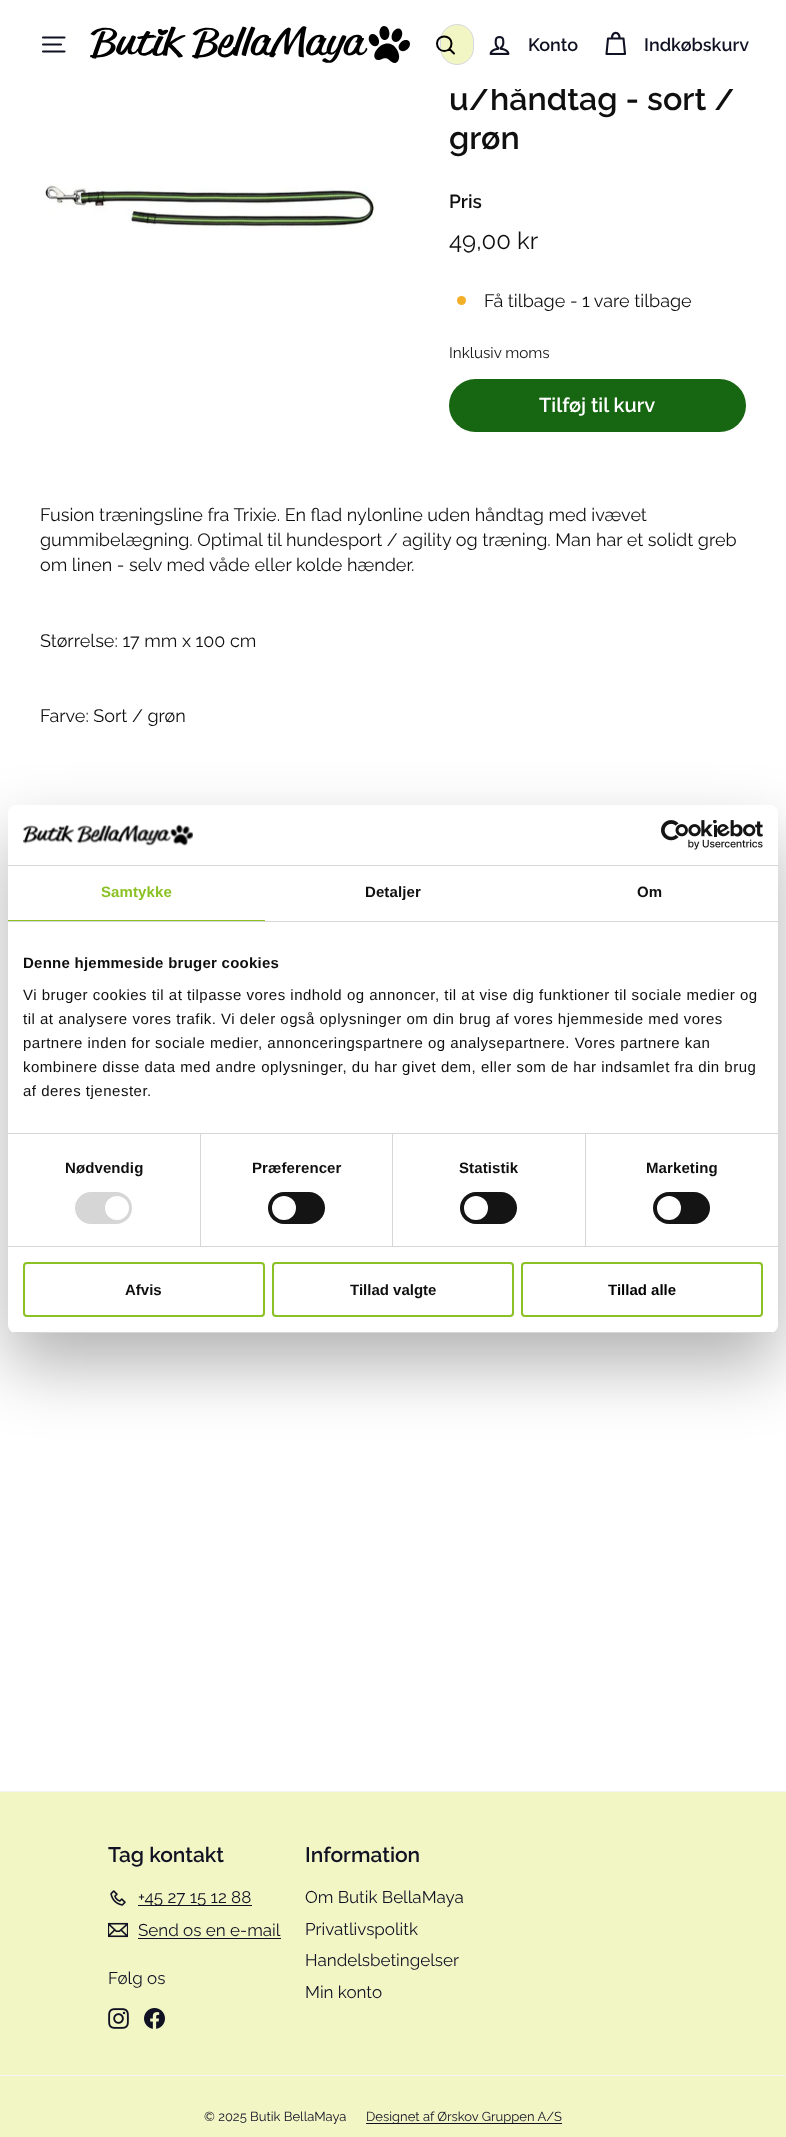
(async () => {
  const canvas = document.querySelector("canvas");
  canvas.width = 786;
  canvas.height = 2137;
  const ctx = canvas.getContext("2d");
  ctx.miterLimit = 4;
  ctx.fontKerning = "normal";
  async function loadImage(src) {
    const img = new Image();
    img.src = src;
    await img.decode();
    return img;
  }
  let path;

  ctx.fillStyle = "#ffffff";
  ctx.fillRect(0, 0, 786, 2137);
  path = new Path2D("M43 37.5H64.5M43 44.5H61M43 51.5H64.5");
  ctx.strokeStyle = "#101123";
  ctx.lineWidth = 2.1;
  ctx.lineCap = "round";
  ctx.lineJoin = "round";
  ctx.stroke(path);
  ctx.drawImage(await loadImage("img/1.png"), 90, 26, 320, 37);
  ctx.fillStyle = "#f2f6c4";
  ctx.beginPath();
  ctx.roundRect(440.5, 24.5, 33, 40, 16.5);
  ctx.fill();
  ctx.strokeStyle = "#d5d9df";
  ctx.lineWidth = 1;
  ctx.lineJoin = "miter";
  ctx.stroke();
  path = new Path2D("M451.5 43.5C451.5 53.5 437 53.5 437 43.5C437 34 451.5 34 451.5 43.5ZM454 53.5L449.5 49");
  ctx.strokeStyle = "#000000";
  ctx.lineWidth = 2;
  ctx.lineJoin = "round";
  ctx.stroke(path);
  ctx.drawImage(await loadImage("img/2.png"), 489, 36, 21, 19);
  path = new Path2D("M612 38.5C612 31 619.5 31 619.5 38.5M608 38.5H623.5L625 54H606.5Z");
  ctx.strokeStyle = "#101123";
  ctx.lineWidth = 2.1;
  ctx.stroke(path);
  ctx.drawImage(await loadImage("img/3.png"), 45, 184, 331, 45);
  ctx.fillStyle = "#f4af29";
  ctx.beginPath();
  ctx.arc(461.5, 300.5, 4.5, 0, Math.PI * 2);
  ctx.fill();
  ctx.fillStyle = "#176612";
  ctx.beginPath();
  ctx.roundRect(449, 379, 297, 53, 26.5);
  ctx.fill();
  ctx.fillStyle = "#f2f6c4";
  ctx.fillRect(0, 1792, 786, 345);
  ctx.fillStyle = "#f2f4f7";
  ctx.fillRect(0, 1791, 786, 1);
  ctx.drawImage(await loadImage("img/4.png"), 110, 1890, 16, 16);
  ctx.fillStyle = "#101123";
  ctx.fillRect(138, 1905, 114, 1);
  ctx.drawImage(await loadImage("img/5.png"), 108, 1922, 20, 16);
  ctx.fillRect(138, 1938, 143, 1);
  ctx.drawImage(await loadImage("img/6.png"), 108, 2008, 21, 21);
  ctx.drawImage(await loadImage("img/7.png"), 144, 2008, 21, 21);
  ctx.fillStyle = "#f2f4f7";
  ctx.fillRect(0, 2075, 786, 1);
  ctx.fillStyle = "#101123";
  ctx.fillRect(366, 2123, 196, 1);
  ctx.fillStyle = "rgba(0, 0, 0, 0.3)";
  ctx.filter = "blur(34px)";
  ctx.beginPath();
  ctx.roundRect(8, 837, 770, 528, 8);
  ctx.fill();
  ctx.filter = "none";
  ctx.fillStyle = "#ffffff";
  ctx.beginPath();
  ctx.roundRect(8, 805, 770, 528, 8);
  ctx.fill();
  ctx.fillStyle = "#d6d6d6";
  ctx.fillRect(8, 865, 770, 1);
  ctx.drawImage(await loadImage("img/8.png"), 23, 824, 170, 22);
  ctx.drawImage(await loadImage("img/9.png"), 661, 820, 102, 30);
  for (const [x, y, w, h, color] of [
    [8, 921, 770, 1, "#d6d6d6"],
    [8, 920, 257, 1, "#8bc125"],
    [8, 1133, 770, 1, "#d6d6d6"],
    [8, 1246, 770, 1, "#d6d6d6"],
    [200, 1134, 1, 112, "#d6d6d6"],
  ]) {
    ctx.fillStyle = color;
    ctx.fillRect(x, y, w, h);
  }
  ctx.beginPath();
  ctx.roundRect(75, 1192, 57, 32, 16);
  ctx.fill();
  ctx.fillStyle = "#ffffff";
  ctx.beginPath();
  ctx.arc(117, 1208, 12, 0, Math.PI * 2);
  ctx.fill();
  ctx.fillStyle = "#d6d6d6";
  ctx.fillRect(392, 1134, 1, 112);
  ctx.fillStyle = "#141414";
  ctx.beginPath();
  ctx.roundRect(268, 1192, 57, 32, 16);
  ctx.fill();
  ctx.fillStyle = "#ffffff";
  ctx.beginPath();
  ctx.arc(284, 1208, 12, 0, Math.PI * 2);
  ctx.fill();
  ctx.fillStyle = "#d6d6d6";
  ctx.fillRect(585, 1134, 1, 112);
  ctx.fillStyle = "#141414";
  ctx.beginPath();
  ctx.roundRect(460, 1192, 57, 32, 16);
  ctx.fill();
  ctx.fillStyle = "#ffffff";
  ctx.beginPath();
  ctx.arc(476, 1208, 12, 0, Math.PI * 2);
  ctx.fill();
  ctx.fillStyle = "#141414";
  ctx.beginPath();
  ctx.roundRect(653, 1192, 57, 32, 16);
  ctx.fill();
  ctx.fillStyle = "#ffffff";
  ctx.beginPath();
  ctx.arc(669, 1208, 12, 0, Math.PI * 2);
  ctx.fill();
  ctx.save();
  ctx.beginPath();
  ctx.roundRect(8, 805, 770, 528, 8);
  ctx.clip();
  ctx.fillStyle = "#d6d6d6";
  ctx.fillRect(8, 1332, 770, 1);
  ctx.restore();
  ctx.beginPath();
  ctx.roundRect(24, 1263, 240, 53, 3);
  ctx.strokeStyle = "#8bc125";
  ctx.lineWidth = 2;
  ctx.lineJoin = "miter";
  ctx.stroke();
  ctx.beginPath();
  ctx.roundRect(273, 1263, 240, 53, 3);
  ctx.stroke();
  ctx.beginPath();
  ctx.roundRect(522, 1263, 240, 53, 3);
  ctx.stroke();
  ctx.font = "600 18px Raleway";
  ctx.fillStyle = "#101123";
  ctx.fillText("Konto", 528, 51);
  ctx.fillText("Indkøbskurv", 644, 51);
  ctx.font = "600 32.25px Raleway";
  ctx.fillStyle = "#0f0f0f";
  ctx.fillText("u/håndtag - sort /", 449, 110);
  ctx.fillStyle = "#ffffff";
  ctx.fillRect(484, 85, 252, 4);
  ctx.fillStyle = "#0f0f0f";
  ctx.fillText("grøn", 449, 149);
  ctx.font = "600 19px Raleway";
  ctx.fillText("Pris", 449, 208);
  ctx.font = "24px Raleway";
  ctx.fillText("49,00 kr", 449, 249);
  ctx.font = "18px Raleway";
  ctx.fillText("Få tilbage - 1 vare tilbage", 484, 307);
  ctx.font = "15.25px Raleway";
  ctx.fillText("Inklusiv moms", 449, 358);
  ctx.font = "600 20px Raleway";
  ctx.fillStyle = "#ffffff";
  ctx.fillText("Tilføj til kurv", 539, 412);
  ctx.font = "18px Raleway";
  ctx.fillStyle = "#0f0f0f";
  for (const [text, x, y] of [
    ["Fusion træningsline fra Trixie. En flad nylonline uden håndtag med ivævet", 40, 521],
    ["gummibelægning. Optimal til hundesport / agility og træning. Man har et solidt greb", 40, 546],
    ["om linen - selv med våde eller kolde hænder.", 40, 571],
    ["Størrelse: 17 mm x 100 cm", 40, 647],
    ["Farve: Sort / grøn", 40, 722],
  ]) {
    ctx.fillText(text, x, y);
  }
  ctx.font = "600 21px Raleway";
  ctx.fillStyle = "#101123";
  ctx.fillText("Tag kontakt", 108, 1862);
  ctx.font = "17px Raleway";
  for (const [text, x, y] of [
    ["+45 27 15 12 88", 138, 1903],
    ["Send os en e-mail", 138, 1936],
    ["Følg os", 108, 1984],
  ]) {
    ctx.fillText(text, x, y);
  }
  ctx.font = "600 21px Raleway";
  ctx.fillText("Information", 305, 1862);
  ctx.font = "17px Raleway";
  for (const [text, x, y] of [
    ["Om Butik BellaMaya", 305, 1903],
    ["Privatlivspolitk", 305, 1935],
    ["Handelsbetingelser", 305, 1966],
    ["Min konto", 305, 1998],
  ]) {
    ctx.fillText(text, x, y);
  }
  ctx.font = "13px Raleway";
  ctx.fillText("© 2025 Butik BellaMaya", 204, 2121);
  ctx.fillText("Designet af Ørskov Gruppen A/S", 366, 2121);
  ctx.letterSpacing = "0.1px";
  ctx.font = "bold 15px Liberation Sans";
  ctx.fillStyle = "#8bc125";
  ctx.fillText("Samtykke", 101, 897);
  ctx.fillStyle = "#0f0f0f";
  ctx.fillText("Detaljer", 365, 897);
  ctx.fillText("Om", 637, 897);
  ctx.letterSpacing = "0.25px";
  ctx.fillText("Denne hjemmeside bruger cookies", 23, 968);
  ctx.letterSpacing = "0.5px";
  ctx.font = "15px Liberation Sans";
  for (const [text, x, y] of [
    ["Vi bruger cookies til at tilpasse vores indhold og annoncer, til at vise dig funktioner til sociale medier og", 23, 1000],
    ["til at analysere vores trafik. Vi deler også oplysninger om din brug af vores hjemmeside med vores", 23, 1024],
    ["partnere inden for sociale medier, annonceringspartnere og analysepartnere. Vores partnere kan", 23, 1048],
    ["kombinere disse data med andre oplysninger, du har givet dem, eller som de har indsamlet fra din brug", 23, 1072],
    ["af deres tjenester.", 23, 1096],
  ]) {
    ctx.fillText(text, x, y);
  }
  ctx.letterSpacing = "0.1px";
  ctx.font = "bold 15px Liberation Sans";
  for (const [text, x, y] of [
    ["Nødvendig", 65, 1173],
    ["Præferencer", 252, 1173],
    ["Statistik", 459, 1173],
    ["Marketing", 646, 1173],
  ]) {
    ctx.fillText(text, x, y);
  }
  ctx.letterSpacing = "0px";
  ctx.fillText("Afvis", 125, 1295);
  ctx.fillText("Tillad valgte", 350, 1295);
  ctx.fillStyle = "#000000";
  ctx.fillText("Tillad alle", 608, 1295);
})();
